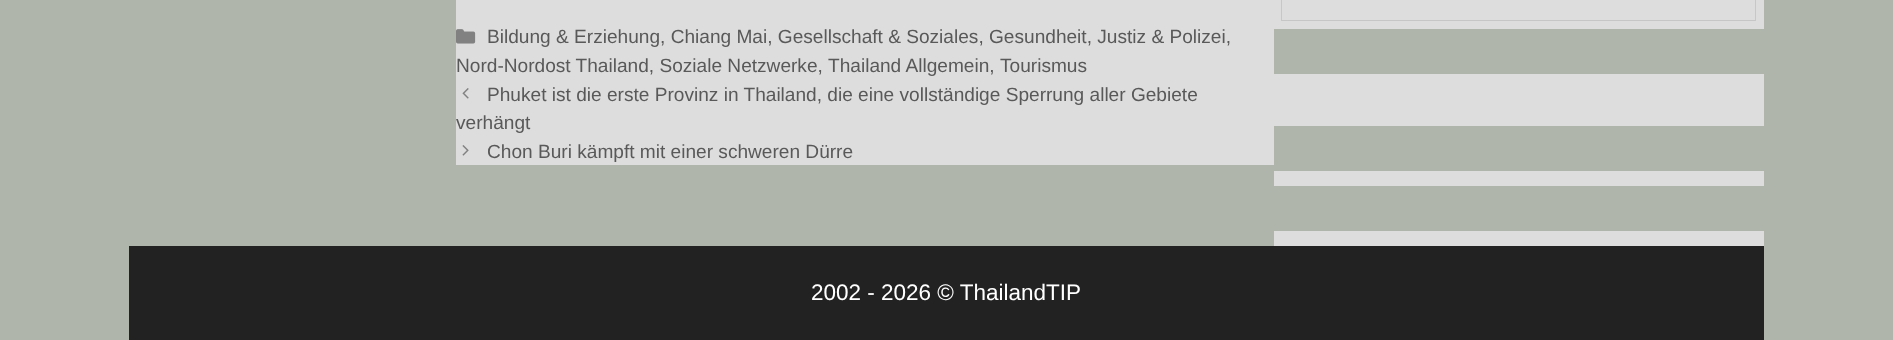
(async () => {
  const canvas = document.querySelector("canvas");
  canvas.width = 1893;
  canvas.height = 340;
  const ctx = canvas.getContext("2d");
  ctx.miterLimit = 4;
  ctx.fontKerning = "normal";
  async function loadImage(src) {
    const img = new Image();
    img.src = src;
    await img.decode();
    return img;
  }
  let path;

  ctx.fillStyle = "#afb5aa";
  ctx.fillRect(0, 0, 1893, 340);
  ctx.fillStyle = "#dddddd";
  ctx.fillRect(456, 0, 818, 165);
  ctx.drawImage(await loadImage("img/1.png"), 456, 29, 20, 15);
  ctx.drawImage(await loadImage("img/2.png"), 462, 88, 7, 11);
  ctx.drawImage(await loadImage("img/3.png"), 462, 145, 7, 11);
  ctx.fillRect(1274, 0, 490, 29);
  ctx.fillStyle = "#c7c7c7";
  path = new Path2D("M1281 21V-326L1282-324V21Z");
  ctx.fill(path);
  path = new Path2D("M1756-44V21L1755 20V-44Z");
  ctx.fill(path);
  ctx.fillStyle = "rgba(0, 0, 0, 0.1)";
  path = new Path2D("M1756 21H1282V20H1755Z");
  ctx.fill(path);
  for (const [x, y, w, h, color] of [
    [1274, 74, 490, 52, "#dddddd"],
    [1274, 171, 490, 15, "#dddddd"],
    [1274, 231, 490, 15, "#dddddd"],
    [129, 246, 1635, 94, "#222222"],
  ]) {
    ctx.fillStyle = color;
    ctx.fillRect(x, y, w, h);
  }
  ctx.font = "19.1px Liberation Sans";
  ctx.fillStyle = "#595959";
  for (const [text, x, y] of [
    ["Bildung & Erziehung, Chiang Mai, Gesellschaft & Soziales, Gesundheit, Justiz & Polizei,", 487, 43],
    ["Nord-Nordost Thailand, Soziale Netzwerke,", 456, 72],
    ["Thailand Allgemein,", 828, 72],
    ["Tourismus", 1000, 72],
    ["Phuket ist die erste Provinz in Thailand, die eine vollständige Sperrung aller Gebiete", 487, 101],
    ["verhängt", 456, 129],
    ["Chon Buri kämpft mit einer schweren Dürre", 487, 158],
  ]) {
    ctx.fillText(text, x, y);
  }
  ctx.font = "22.5px Liberation Sans";
  ctx.fillStyle = "#ffffff";
  ctx.fillText("2002 - 2026 © ThailandTIP", 811, 300);
})();
